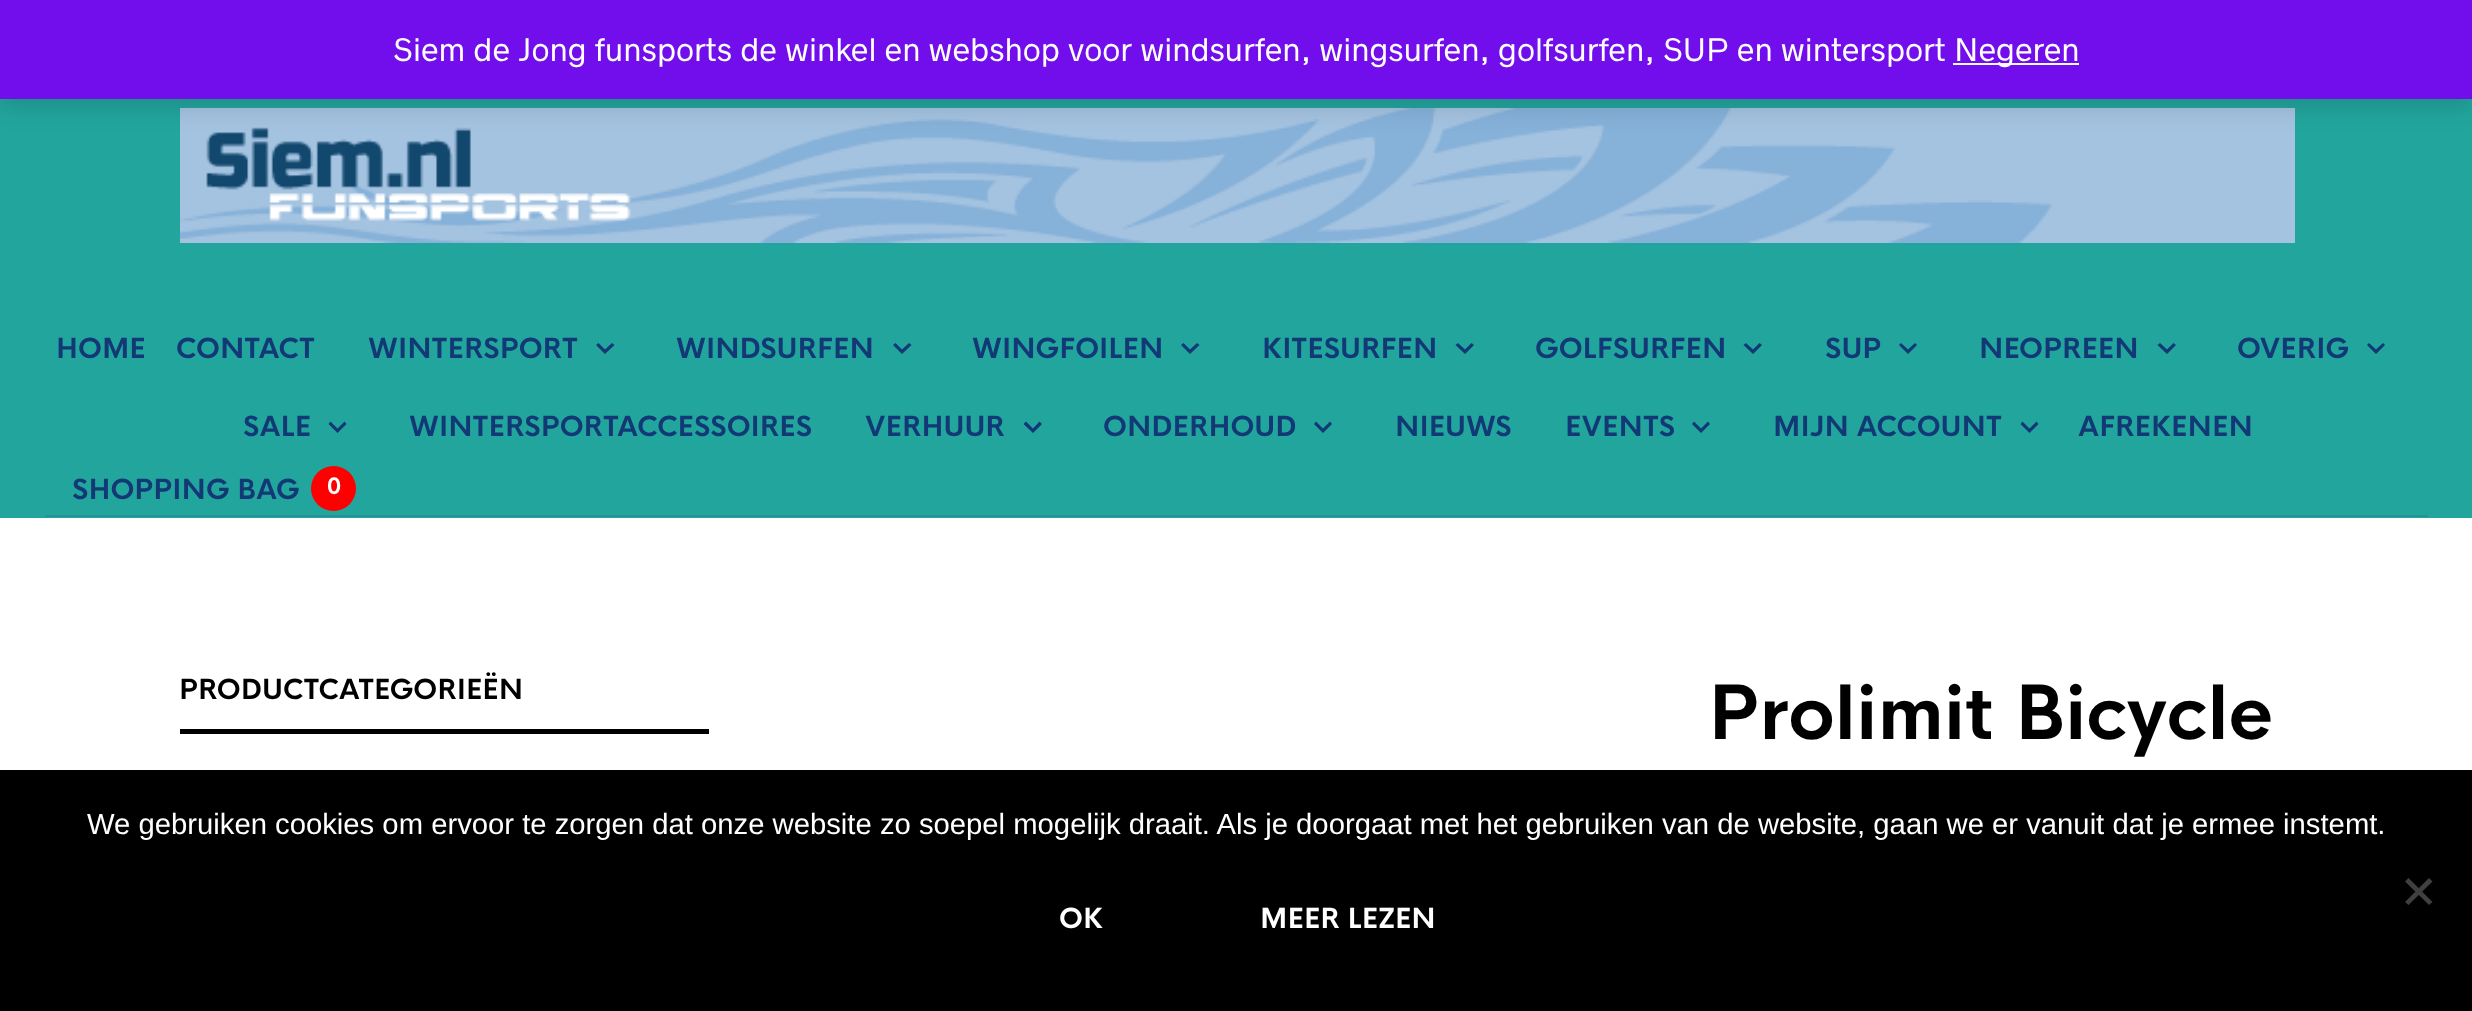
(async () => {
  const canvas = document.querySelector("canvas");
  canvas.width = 2472;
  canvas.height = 1011;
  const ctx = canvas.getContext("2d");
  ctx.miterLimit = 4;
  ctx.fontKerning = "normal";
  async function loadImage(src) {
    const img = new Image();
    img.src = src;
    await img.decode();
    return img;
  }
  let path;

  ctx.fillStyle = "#ffffff";
  ctx.fillRect(0, 0, 2472, 1011);
  ctx.fillStyle = "#22a59d";
  ctx.fillRect(0, 99, 2472, 419);
  ctx.drawImage(await loadImage("img/1.png"), 180, 108, 2115, 135);
  ctx.fillStyle = "rgba(0, 0, 0, 0.2)";
  ctx.filter = "blur(14.5px)";
  ctx.beginPath();
  ctx.rect(0, 2, 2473, 99);
  ctx.fill();
  ctx.filter = "none";
  for (const [x, y, w, h, color] of [
    [0, 0, 2472, 99, "#720eec"],
    [1953, 63, 126, 2, "#fcfbfe"],
    [45, 515, 2383, 2, "#209597"],
  ]) {
    ctx.fillStyle = color;
    ctx.fillRect(x, y, w, h);
  }
  ctx.fillStyle = "#123875";
  path = new Path2D("M598.5 343L596 345L605 354L614.5 345L612 343L605 349.5Z");
  ctx.fill(path);
  path = new Path2D("M895.5 343L893 345L902 354L911.5 345L909 343L902 349.5Z");
  ctx.fill(path);
  path = new Path2D("M1183.5 343L1181 345L1190 354L1199.5 345L1197 343L1190 349.5Z");
  ctx.fill(path);
  path = new Path2D("M1458 343L1455.5 345L1465 354L1474 345L1471.5 343L1465 349.5Z");
  ctx.fill(path);
  path = new Path2D("M1746 343L1743.5 345L1753 354L1762 345L1759.5 343L1753 349.5Z");
  ctx.fill(path);
  path = new Path2D("M1901 343L1899 345L1908 354L1917 345L1915 343L1908 349.5Z");
  ctx.fill(path);
  path = new Path2D("M2160 343L2157.5 345L2167 354L2176 345L2173.5 343L2167 349.5Z");
  ctx.fill(path);
  path = new Path2D("M2369 343L2367 345L2376 354L2385 345L2383 343L2376 349.5Z");
  ctx.fill(path);
  path = new Path2D("M330.5 421.5L328.5 424L337.5 433L346.5 424L344.5 421.5L337.5 428.5Z");
  ctx.fill(path);
  path = new Path2D("M1026 421.5L1023.5 424L1033 433L1042 424L1039.5 421.5L1033 428.5Z");
  ctx.fill(path);
  path = new Path2D("M1316 421.5L1314 424L1323 433L1332 424L1330 421.5L1323 428.5Z");
  ctx.fill(path);
  path = new Path2D("M1694 421.5L1692 424L1701 433L1710 424L1708 421.5L1701 428.5Z");
  ctx.fill(path);
  path = new Path2D("M2022.5 421.5L2020.5 424L2029.5 433L2038.5 424L2036.5 421.5L2029.5 428.5Z");
  ctx.fill(path);
  ctx.fillStyle = "#ff0000";
  ctx.beginPath();
  ctx.arc(333.5, 488.5, 22.5, 0, Math.PI * 2);
  ctx.fill();
  ctx.fillStyle = "#000000";
  ctx.fillRect(180, 729, 529, 5);
  ctx.fillRect(0, 770, 2472, 241);
  ctx.fillStyle = "#404040";
  path = new Path2D("M2429 878L2432.5 881.5L2408.5 905L2405 902Z");
  ctx.fill(path);
  path = new Path2D("M2405 881.5L2408.5 878L2432.5 902L2429 905Z");
  ctx.fill(path);
  ctx.font = "29.25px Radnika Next";
  ctx.fillStyle = "#ffffff";
  ctx.fillText("Siem de Jong funsports de winkel en webshop voor windsurfen, wingsurfen, golfsurfen, SUP en wintersport", 393, 61);
  ctx.fillText("Negeren", 1954, 61);
  ctx.font = "bold 27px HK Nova";
  ctx.fillStyle = "#123875";
  for (const [text, x, y] of [
    ["HOME", 56, 358],
    ["CONTACT", 176, 358],
    ["WINTERSPORT", 368, 358],
    ["WINDSURFEN", 676, 358],
    ["WINGFOILEN", 972, 358],
    ["KITESURFEN", 1262, 358],
    ["GOLFSURFEN", 1535, 358],
    ["SUP", 1825, 358],
    ["NEOPREEN", 1979, 358],
    ["OVERIG", 2237, 358],
    ["SALE", 243, 436],
    ["WINTERSPORTACCESSOIRES", 409, 436],
    ["VERHUUR", 865, 436],
    ["ONDERHOUD", 1103, 436],
    ["NIEUWS", 1395, 436],
    ["EVENTS", 1565, 436],
    ["MIJN ACCOUNT", 1773, 436],
    ["AFREKENEN", 2078, 436],
    ["SHOPPING BAG", 72, 499],
  ]) {
    ctx.fillText(text, x, y);
  }
  ctx.font = "bold 22px HK Nova";
  ctx.fillStyle = "#ffffff";
  ctx.fillText("0", 327, 494);
  ctx.font = "bold 27px HK Nova";
  ctx.fillStyle = "#000000";
  ctx.fillText("PRODUCTCATEGORIEËN", 179, 699);
  ctx.font = "bold 72.75px HK Nova";
  ctx.fillText("Prolimit Bicycle", 1708, 739);
  ctx.font = "29.25px Liberation Sans";
  ctx.fillStyle = "#ffffff";
  ctx.fillText("We gebruiken cookies om ervoor te zorgen dat onze website zo soepel mogelijk draait. Als je doorgaat met het gebruiken van de website, gaan we er vanuit dat je ermee instemt.", 87, 834);
  ctx.font = "bold 27px HK Nova";
  ctx.fillText("OK", 1059, 928);
  ctx.fillText("MEER LEZEN", 1260, 928);
})();
